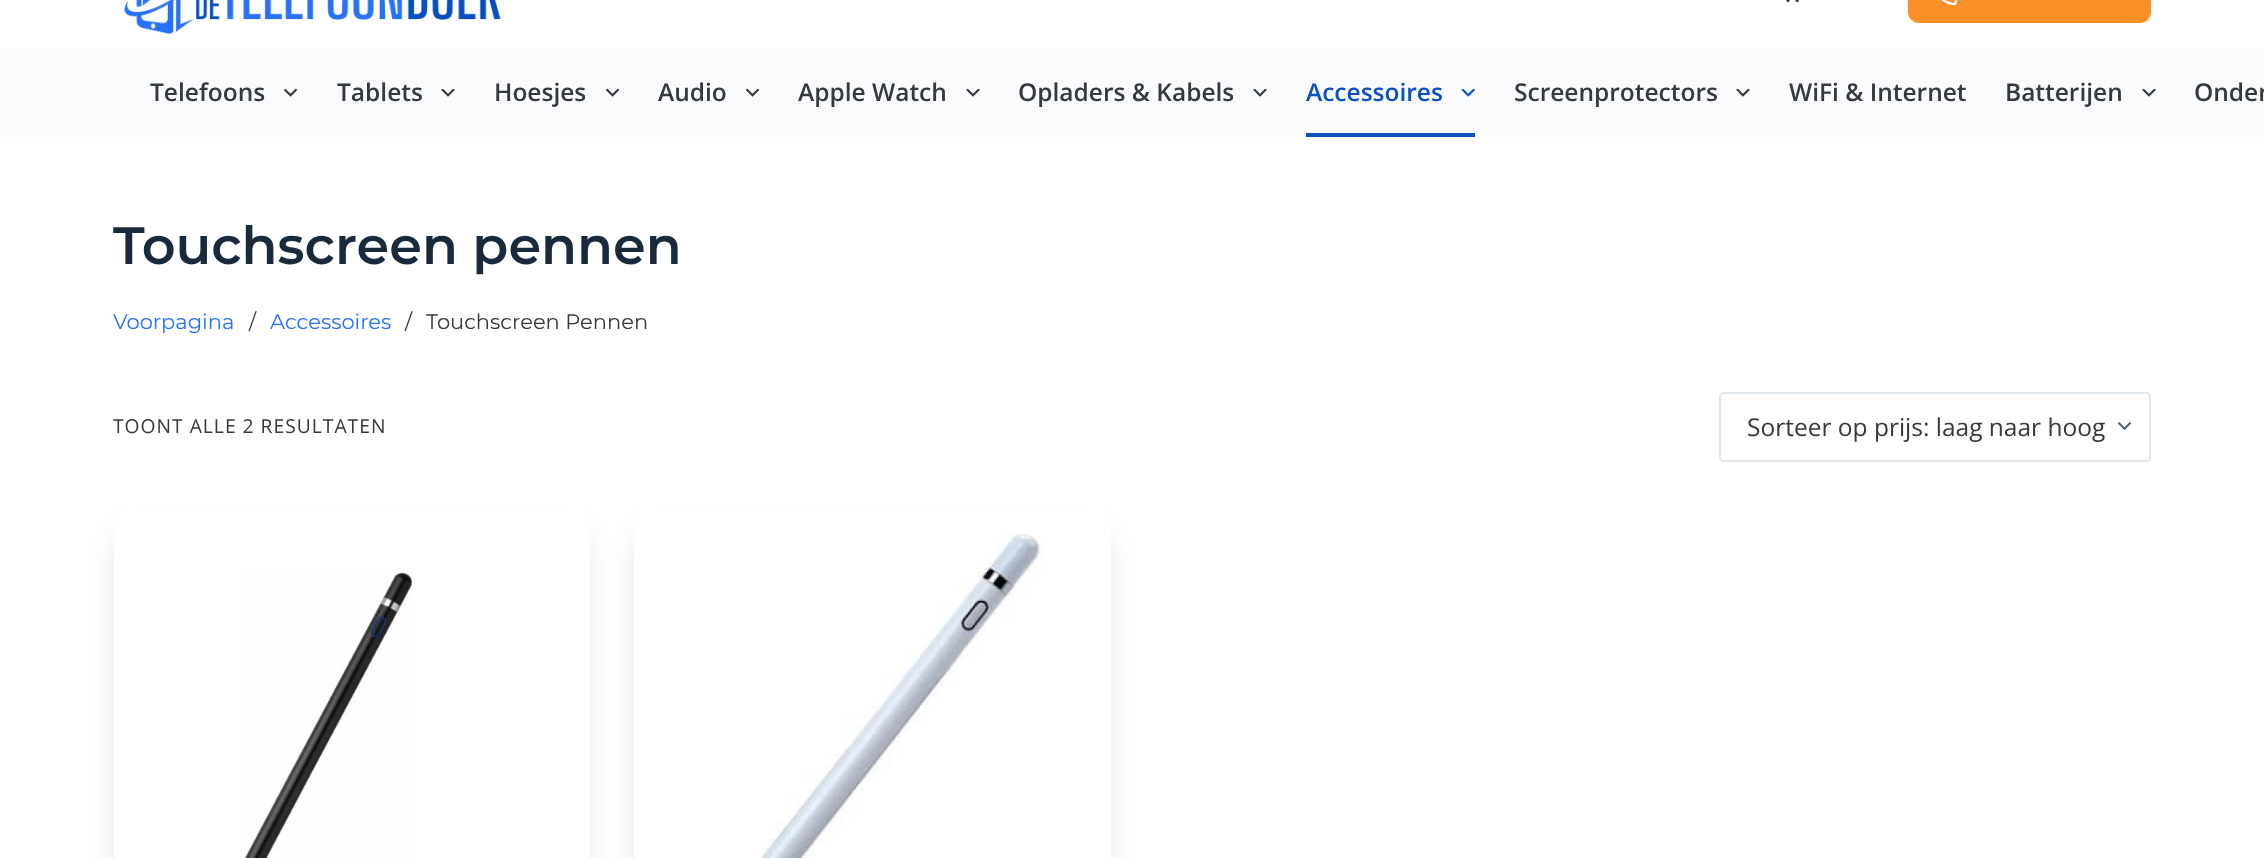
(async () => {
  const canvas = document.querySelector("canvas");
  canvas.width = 2264;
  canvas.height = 858;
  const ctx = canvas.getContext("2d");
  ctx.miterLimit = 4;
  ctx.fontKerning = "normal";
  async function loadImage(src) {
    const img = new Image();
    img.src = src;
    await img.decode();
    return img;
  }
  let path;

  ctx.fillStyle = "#ffffff";
  ctx.fillRect(0, 0, 2264, 858);
  ctx.drawImage(await loadImage("img/1.png"), 124, 0, 377, 34);
  ctx.drawImage(await loadImage("img/2.png"), 1786, 0, 13, 3);
  ctx.fillStyle = "#fa9028";
  ctx.beginPath();
  ctx.roundRect(1908, -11, 243, 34, 11);
  ctx.fill();
  ctx.drawImage(await loadImage("img/3.png"), 1941, 0, 17, 5);
  ctx.fillStyle = "#fafbfc";
  ctx.fillRect(0, 49, 2264, 88);
  ctx.drawImage(await loadImage("img/4.png"), 284, 88, 14, 9);
  ctx.drawImage(await loadImage("img/5.png"), 441, 88, 14, 9);
  ctx.drawImage(await loadImage("img/4.png"), 606, 88, 14, 9);
  ctx.drawImage(await loadImage("img/4.png"), 746, 88, 14, 9);
  ctx.drawImage(await loadImage("img/5.png"), 966, 88, 14, 9);
  ctx.drawImage(await loadImage("img/5.png"), 1253, 88, 14, 9);
  ctx.drawImage(await loadImage("img/6.png"), 1461, 88, 14, 9);
  ctx.fillStyle = "#084fc1";
  ctx.fillRect(1306, 133, 169, 4);
  ctx.drawImage(await loadImage("img/5.png"), 1736, 88, 14, 9);
  ctx.drawImage(await loadImage("img/5.png"), 2142, 88, 14, 9);
  ctx.drawImage(await loadImage("img/7.png"), 2118, 422, 14, 8);
  ctx.beginPath();
  ctx.roundRect(1720, 393, 430, 68, 4);
  ctx.strokeStyle = "#e1e8ed";
  ctx.lineWidth = 2;
  ctx.stroke();
  ctx.fillStyle = "rgba(0, 7, 20, 0.19)";
  ctx.filter = "blur(16px)";
  ctx.beginPath();
  ctx.roundRect(124, 537, 455, 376, 7);
  ctx.fill();
  ctx.filter = "none";
  ctx.fillStyle = "#ffffff";
  ctx.beginPath();
  ctx.roundRect(114, 506, 476, 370, 18);
  ctx.fill();
  ctx.drawImage(await loadImage("img/8.png"), 244, 572, 168, 286);
  ctx.save();
  path = new Path2D("M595 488H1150V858H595ZM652 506H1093C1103 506 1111 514 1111 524V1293C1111 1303 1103 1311 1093 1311H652C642 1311 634 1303 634 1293V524C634 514 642 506 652 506Z");
  ctx.clip(path, "evenodd");
  ctx.fillStyle = "rgba(0, 7, 20, 0.19)";
  ctx.filter = "blur(16px)";
  ctx.beginPath();
  ctx.roundRect(644, 537, 457, 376, 7);
  ctx.fill();
  ctx.filter = "none";
  ctx.restore();
  ctx.drawImage(await loadImage("img/9.png"), 760, 533, 284, 325);
  ctx.font = "600 24.5px Open Sans";
  ctx.fillStyle = "#35383c";
  for (const [text, x, y] of [
    ["Telefoons", 150, 101],
    ["Tablets", 337, 101],
    ["Hoesjes", 494, 101],
    ["Audio", 658, 101],
    ["Apple Watch", 798, 101],
    ["Opladers & Kabels", 1018, 101],
  ]) {
    ctx.fillText(text, x, y);
  }
  ctx.fillStyle = "#084fc1";
  ctx.fillText("Accessoires", 1306, 101);
  ctx.fillStyle = "#35383c";
  for (const [text, x, y] of [
    ["Screenprotectors", 1514, 101],
    ["WiFi & Internet", 1789, 101],
    ["Batterijen", 2005, 101],
    ["Onder", 2194, 101],
  ]) {
    ctx.fillText(text, x, y);
  }
  ctx.font = "600 52.5px Montserrat";
  ctx.fillStyle = "#192a3d";
  ctx.fillText("Touchscreen pennen", 113, 264);
  ctx.font = "21px Montserrat";
  ctx.fillStyle = "#2872fa";
  ctx.fillText("Voorpagina", 113, 329);
  ctx.fillStyle = "#35383c";
  ctx.fillText("/", 249, 329);
  ctx.fillStyle = "#2872fa";
  ctx.fillText("Accessoires", 270, 329);
  ctx.fillStyle = "#35383c";
  ctx.fillText("/", 405, 329);
  ctx.fillText("Touchscreen Pennen", 426, 329);
  ctx.letterSpacing = "1px";
  ctx.font = "19.25px Open Sans";
  ctx.fillText("TOONT ALLE 2 RESULTATEN", 113, 433);
  ctx.letterSpacing = "0px";
  ctx.font = "24.5px Open Sans";
  ctx.fillText("Sorteer op prijs: laag naar hoog", 1747, 436);
})();
